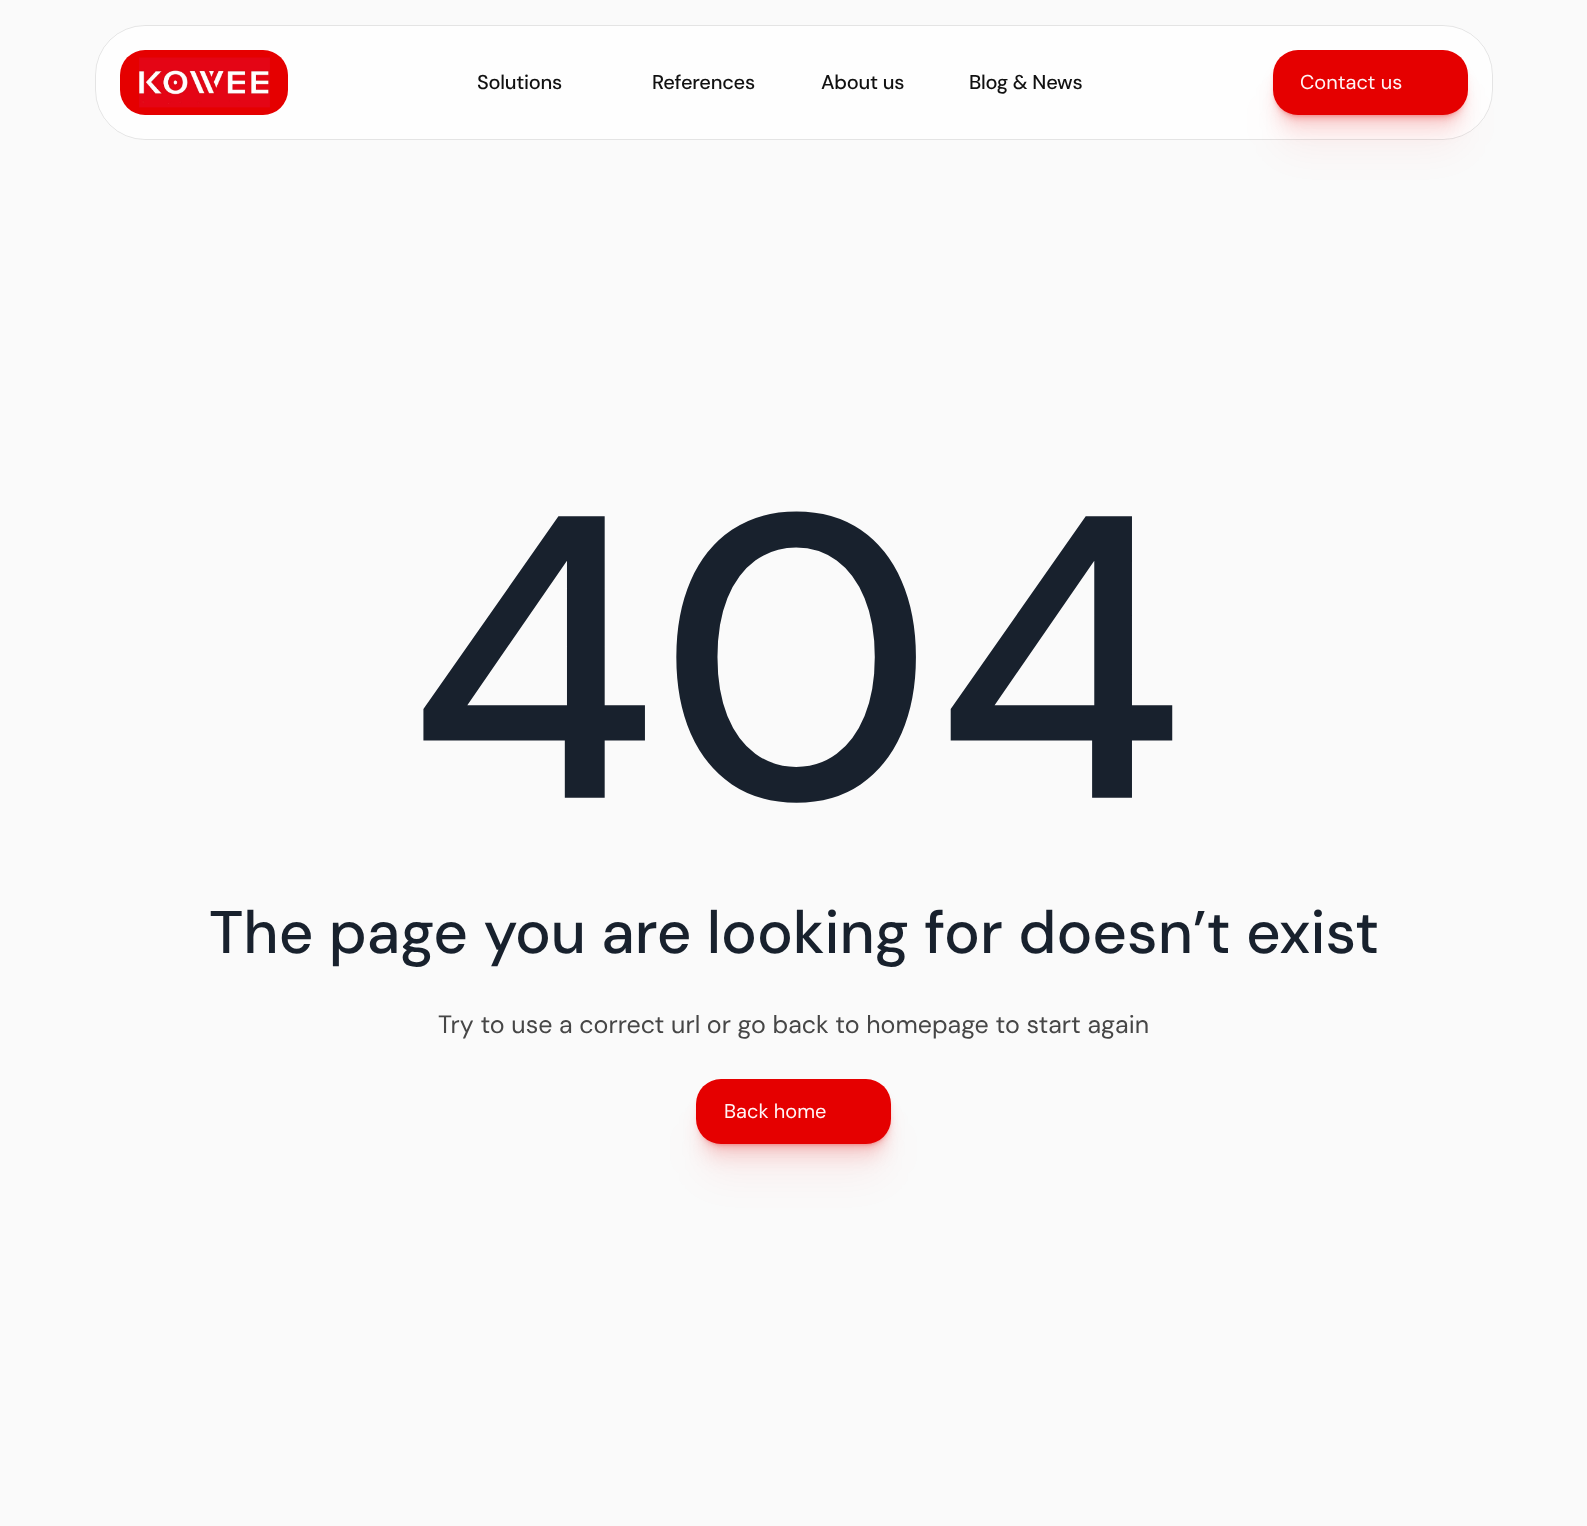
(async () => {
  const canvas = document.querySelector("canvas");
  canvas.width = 1587;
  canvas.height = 1526;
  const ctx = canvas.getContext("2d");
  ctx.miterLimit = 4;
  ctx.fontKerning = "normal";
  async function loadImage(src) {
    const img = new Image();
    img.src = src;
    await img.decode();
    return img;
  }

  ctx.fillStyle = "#fafafa";
  ctx.fillRect(0, 0, 1587, 1526);
  ctx.fillStyle = "#fefefe";
  ctx.beginPath();
  ctx.roundRect(95, 25, 1398, 115, 50);
  ctx.fill();
  ctx.fillStyle = "#e50000";
  ctx.beginPath();
  ctx.roundRect(120, 50, 168, 65, 25);
  ctx.fill();
  ctx.drawImage(await loadImage("img/1.png"), 139, 57, 131, 51);
  ctx.fillStyle = "rgba(229, 0, 0, 0.05)";
  ctx.filter = "blur(19px)";
  ctx.beginPath();
  ctx.roundRect(1278, 93, 185, 55, 20);
  ctx.fill();
  ctx.filter = "none";
  ctx.fillStyle = "rgba(229, 0, 0, 0.11)";
  ctx.filter = "blur(8.5px)";
  ctx.beginPath();
  ctx.roundRect(1276, 71, 188, 58, 21);
  ctx.fill();
  ctx.filter = "none";
  ctx.fillStyle = "rgba(229, 0, 0, 0.12)";
  ctx.filter = "blur(4.5px)";
  ctx.beginPath();
  ctx.roundRect(1276, 61, 189, 59, 23);
  ctx.fill();
  ctx.filter = "none";
  ctx.fillStyle = "rgba(229, 0, 0, 0.14)";
  ctx.filter = "blur(2.5px)";
  ctx.beginPath();
  ctx.roundRect(1275, 56, 190, 62, 23);
  ctx.fill();
  ctx.filter = "none";
  ctx.filter = "blur(1px)";
  ctx.beginPath();
  ctx.roundRect(1274, 54, 192, 62, 24);
  ctx.fill();
  ctx.filter = "none";
  ctx.fillStyle = "rgba(229, 0, 0, 0.15)";
  ctx.filter = "blur(0.5px)";
  ctx.beginPath();
  ctx.roundRect(1274, 51, 192, 64, 24);
  ctx.fill();
  ctx.filter = "none";
  ctx.fillStyle = "#e50000";
  ctx.beginPath();
  ctx.roundRect(1273, 50, 195, 65, 25);
  ctx.fill();
  ctx.beginPath();
  ctx.roundRect(95.5, 25.5, 1397, 114, 49.5);
  ctx.strokeStyle = "rgba(0, 0, 0, 0.1)";
  ctx.stroke();
  ctx.drawImage(await loadImage("img/2.png"), 423, 511, 750, 292);
  ctx.fillStyle = "rgba(229, 0, 0, 0.05)";
  ctx.filter = "blur(19px)";
  ctx.beginPath();
  ctx.roundRect(701, 1121, 185, 55, 20);
  ctx.fill();
  ctx.filter = "none";
  ctx.fillStyle = "rgba(229, 0, 0, 0.11)";
  ctx.filter = "blur(8.5px)";
  ctx.beginPath();
  ctx.roundRect(700, 1100, 188, 58, 21);
  ctx.fill();
  ctx.filter = "none";
  ctx.fillStyle = "rgba(229, 0, 0, 0.12)";
  ctx.filter = "blur(4.5px)";
  ctx.beginPath();
  ctx.roundRect(700, 1090, 189, 59, 23);
  ctx.fill();
  ctx.filter = "none";
  ctx.fillStyle = "rgba(229, 0, 0, 0.14)";
  ctx.filter = "blur(2.5px)";
  ctx.beginPath();
  ctx.roundRect(699, 1085, 190, 61, 23);
  ctx.fill();
  ctx.filter = "none";
  ctx.filter = "blur(1px)";
  ctx.beginPath();
  ctx.roundRect(698, 1083, 192, 62, 24);
  ctx.fill();
  ctx.filter = "none";
  ctx.fillStyle = "rgba(229, 0, 0, 0.15)";
  ctx.filter = "blur(0.5px)";
  ctx.beginPath();
  ctx.roundRect(698, 1080, 192, 64, 24);
  ctx.fill();
  ctx.filter = "none";
  ctx.fillStyle = "#e50000";
  ctx.beginPath();
  ctx.roundRect(696, 1079, 195, 65, 25);
  ctx.fill();
  ctx.letterSpacing = "-0.25px";
  ctx.font = "500 20px DM Sans";
  ctx.fillStyle = "#111111";
  for (const [text, x, y] of [
    ["Solutions", 477, 89],
    ["References", 652, 89],
    ["About us", 821, 89],
    ["Blog & News", 969, 89],
  ]) {
    ctx.fillText(text, x, y);
  }
  ctx.letterSpacing = "0px";
  ctx.font = "20px DM Sans";
  ctx.fillStyle = "#fff5f6";
  ctx.fillText("Contact us", 1300, 89);
  ctx.font = "500 60px DM Sans";
  ctx.fillStyle = "#18212d";
  ctx.fillText("The page you are looking for doesn’t exist", 209, 953);
  ctx.font = "25px DM Sans";
  ctx.fillStyle = "#464646";
  ctx.fillText("Try to use a correct url or go back to homepage to start again", 438, 1033);
  ctx.font = "20px DM Sans";
  ctx.fillStyle = "#fff5f6";
  ctx.fillText("Back home", 724, 1118);
})();
